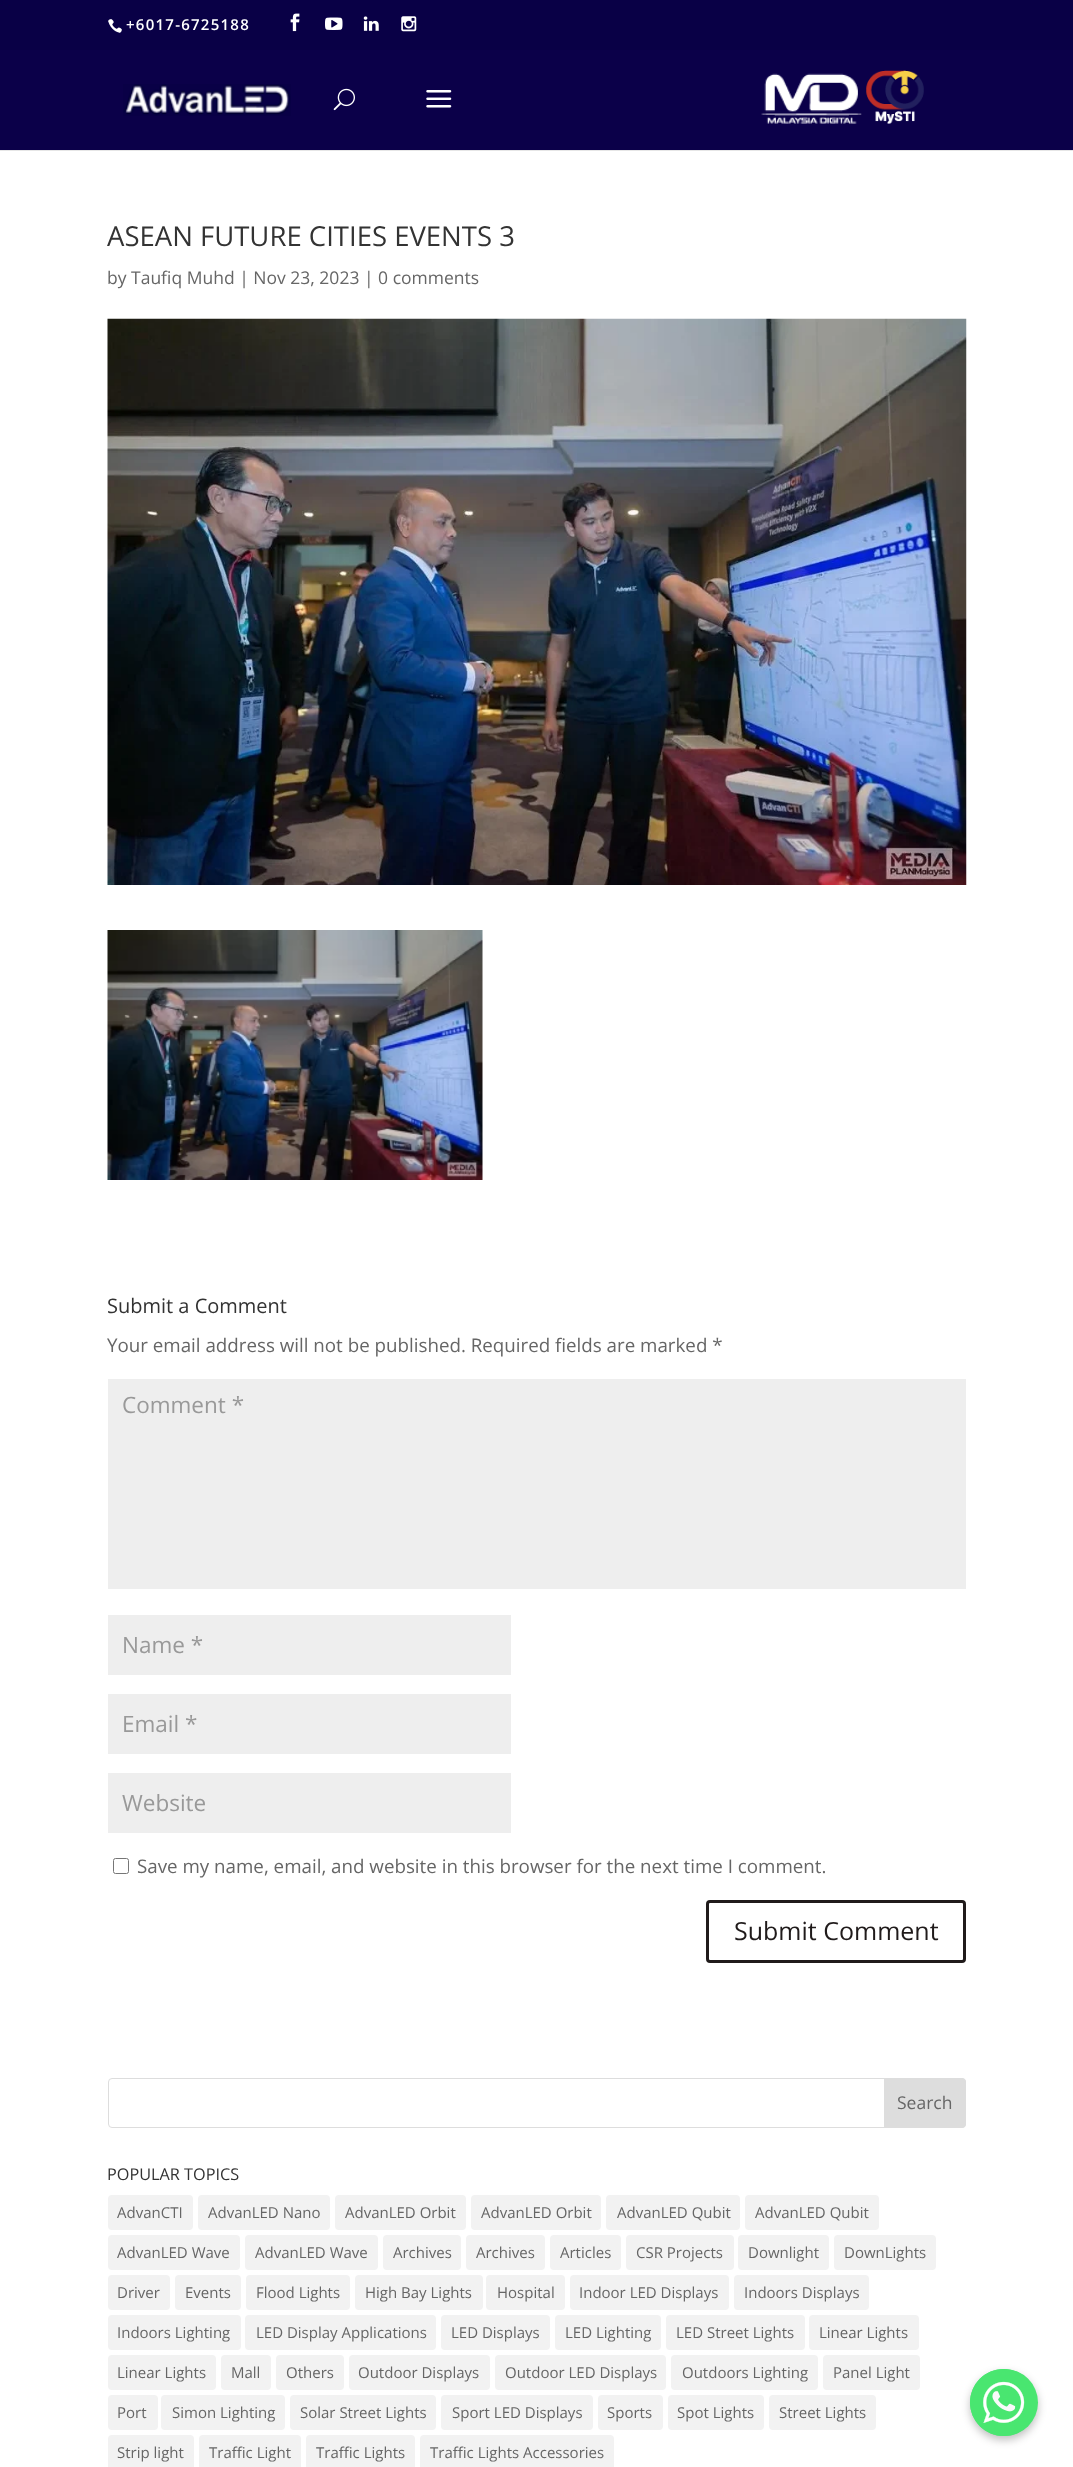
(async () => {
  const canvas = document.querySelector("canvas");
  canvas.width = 1073;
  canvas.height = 2467;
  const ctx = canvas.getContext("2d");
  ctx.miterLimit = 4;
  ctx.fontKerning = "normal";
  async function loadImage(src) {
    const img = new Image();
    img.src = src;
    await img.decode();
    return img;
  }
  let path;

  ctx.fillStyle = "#ffffff";
  ctx.fillRect(0, 0, 1073, 2467);
  ctx.fillStyle = "#090046";
  ctx.fillRect(0, 0, 1073, 50);
  ctx.drawImage(await loadImage("img/1.png"), 108, 19, 14, 14);
  ctx.drawImage(await loadImage("img/2.png"), 290, 13, 10, 19);
  ctx.drawImage(await loadImage("img/3.png"), 325, 17, 18, 13);
  ctx.drawImage(await loadImage("img/4.png"), 363, 16, 16, 15);
  ctx.drawImage(await loadImage("img/5.png"), 401, 16, 16, 16);
  ctx.fillStyle = "#e6e6e6";
  path = new Path2D("M0 150V151H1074V51V150Z");
  ctx.fill(path);
  ctx.fillStyle = "#0b0049";
  ctx.fillRect(0, 50, 1073, 100);
  ctx.drawImage(await loadImage("img/6.png"), 123, 84, 168, 32);
  ctx.drawImage(await loadImage("img/7.png"), 333, 88, 22, 23);
  ctx.drawImage(await loadImage("img/8.png"), 426, 90, 26, 18);
  ctx.drawImage(await loadImage("img/9.png"), 761, 73, 101, 51);
  ctx.drawImage(await loadImage("img/10.png"), 866, 70, 58, 54);
  ctx.drawImage(await loadImage("img/11.png"), 107, 318, 860, 567);
  ctx.drawImage(await loadImage("img/12.png"), 107, 930, 376, 250);
  for (const [x, y, w, h, color] of [
    [108, 1379, 858, 210, "#eeeeee"],
    [108, 1615, 403, 60, "#eeeeee"],
    [108, 1694, 403, 60, "#eeeeee"],
    [108, 1773, 403, 60, "#eeeeee"],
  ]) {
    ctx.fillStyle = color;
    ctx.fillRect(x, y, w, h);
  }
  ctx.beginPath();
  ctx.roundRect(113.5, 1858.5, 15, 15, 2);
  ctx.strokeStyle = "#767676";
  ctx.stroke();
  ctx.beginPath();
  ctx.roundRect(707.5, 1901.5, 257, 60, 2.5);
  ctx.strokeStyle = "#201b1b";
  ctx.lineWidth = 3;
  ctx.stroke();
  ctx.beginPath();
  ctx.roundRect(108.5, 2078.5, 857, 49, 3.5);
  ctx.strokeStyle = "#dddddd";
  ctx.lineWidth = 1;
  ctx.stroke();
  ctx.fillStyle = "#dddddd";
  ctx.beginPath();
  ctx.roundRect(884.5, 2078.5, 81, 49, [0, 3.5, 3.5, 0]);
  ctx.fill();
  ctx.stroke();
  ctx.fillStyle = "#f2f2f2";
  ctx.beginPath();
  ctx.roundRect(108, 2195, 85, 35, 4);
  ctx.fill();
  ctx.beginPath();
  ctx.roundRect(198, 2195, 132, 35, 4);
  ctx.fill();
  ctx.beginPath();
  ctx.roundRect(335, 2195, 131, 35, 4);
  ctx.fill();
  ctx.beginPath();
  ctx.roundRect(471, 2195, 130, 35, 4);
  ctx.fill();
  ctx.beginPath();
  ctx.roundRect(606, 2195, 134, 35, 4);
  ctx.fill();
  ctx.beginPath();
  ctx.roundRect(745, 2195, 134, 35, 4);
  ctx.fill();
  ctx.beginPath();
  ctx.roundRect(108, 2235, 132, 35, 4);
  ctx.fill();
  ctx.beginPath();
  ctx.roundRect(245, 2235, 133, 35, 4);
  ctx.fill();
  ctx.beginPath();
  ctx.roundRect(383, 2235, 78, 35, 4);
  ctx.fill();
  ctx.beginPath();
  ctx.roundRect(466, 2235, 79, 35, 4);
  ctx.fill();
  ctx.beginPath();
  ctx.roundRect(550, 2235, 71, 35, 4);
  ctx.fill();
  ctx.beginPath();
  ctx.roundRect(626, 2235, 108, 35, 4);
  ctx.fill();
  ctx.beginPath();
  ctx.roundRect(738, 2235, 91, 35, 4);
  ctx.fill();
  ctx.beginPath();
  ctx.roundRect(834, 2235, 102, 35, 4);
  ctx.fill();
  ctx.beginPath();
  ctx.roundRect(108, 2275, 62, 35, 4);
  ctx.fill();
  ctx.beginPath();
  ctx.roundRect(175, 2275, 66, 35, 4);
  ctx.fill();
  ctx.beginPath();
  ctx.roundRect(246, 2275, 104, 35, 4);
  ctx.fill();
  ctx.beginPath();
  ctx.roundRect(355, 2275, 128, 35, 4);
  ctx.fill();
  ctx.beginPath();
  ctx.roundRect(486, 2275, 79, 35, 4);
  ctx.fill();
  ctx.beginPath();
  ctx.roundRect(570, 2275, 159, 35, 4);
  ctx.fill();
  ctx.beginPath();
  ctx.roundRect(734, 2275, 135, 35, 4);
  ctx.fill();
  ctx.beginPath();
  ctx.roundRect(108, 2315, 133, 35, 4);
  ctx.fill();
  ctx.beginPath();
  ctx.roundRect(245, 2315, 191, 35, 4);
  ctx.fill();
  ctx.beginPath();
  ctx.roundRect(441, 2315, 109, 35, 4);
  ctx.fill();
  ctx.beginPath();
  ctx.roundRect(555, 2315, 106, 35, 4);
  ctx.fill();
  ctx.beginPath();
  ctx.roundRect(666, 2315, 139, 35, 4);
  ctx.fill();
  ctx.beginPath();
  ctx.roundRect(809, 2315, 110, 35, 4);
  ctx.fill();
  ctx.beginPath();
  ctx.roundRect(108, 2355, 108, 35, 4);
  ctx.fill();
  ctx.beginPath();
  ctx.roundRect(221, 2355, 50, 35, 4);
  ctx.fill();
  ctx.beginPath();
  ctx.roundRect(276, 2355, 68, 35, 4);
  ctx.fill();
  ctx.beginPath();
  ctx.roundRect(349, 2355, 141, 35, 4);
  ctx.fill();
  ctx.beginPath();
  ctx.roundRect(495, 2355, 171, 35, 4);
  ctx.fill();
  ctx.beginPath();
  ctx.roundRect(671, 2355, 147, 35, 4);
  ctx.fill();
  ctx.beginPath();
  ctx.roundRect(823, 2355, 97, 35, 4);
  ctx.fill();
  ctx.beginPath();
  ctx.roundRect(108, 2395, 50, 35, 4);
  ctx.fill();
  ctx.beginPath();
  ctx.roundRect(161, 2395, 124, 35, 4);
  ctx.fill();
  ctx.beginPath();
  ctx.roundRect(290, 2395, 146, 35, 4);
  ctx.fill();
  ctx.beginPath();
  ctx.roundRect(441, 2395, 152, 35, 4);
  ctx.fill();
  ctx.beginPath();
  ctx.roundRect(598, 2395, 65, 35, 4);
  ctx.fill();
  ctx.beginPath();
  ctx.roundRect(668, 2395, 96, 35, 4);
  ctx.fill();
  ctx.beginPath();
  ctx.roundRect(769, 2395, 107, 35, 4);
  ctx.fill();
  ctx.beginPath();
  ctx.roundRect(108, 2435, 86, 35, 4);
  ctx.fill();
  ctx.beginPath();
  ctx.roundRect(199, 2435, 102, 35, 4);
  ctx.fill();
  ctx.beginPath();
  ctx.roundRect(306, 2435, 109, 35, 4);
  ctx.fill();
  ctx.beginPath();
  ctx.roundRect(420, 2435, 194, 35, 4);
  ctx.fill();
  ctx.fillStyle = "rgba(0, 0, 0, 0.25)";
  ctx.filter = "blur(4px)";
  ctx.beginPath();
  ctx.roundRect(970, 2373, 68, 67, 33.5);
  ctx.fill();
  ctx.filter = "none";
  ctx.fillStyle = "#49e670";
  ctx.beginPath();
  ctx.roundRect(970, 2369, 68, 67, 33.5);
  ctx.fill();
  ctx.drawImage(await loadImage("img/13.png"), 970, 2369, 55, 67);
  ctx.letterSpacing = "1.25px";
  ctx.font = "600 15px Open Sans";
  ctx.fillStyle = "#ffffff";
  ctx.fillText("+6017-6725188", 126, 30);
  ctx.letterSpacing = "0px";
  ctx.font = "27.5px Open Sans";
  ctx.fillStyle = "#333333";
  ctx.fillText("ASEAN FUTURE CITIES EVENTS 3", 107, 246);
  ctx.font = "17.5px Open Sans";
  ctx.fillStyle = "#666666";
  ctx.fillText("by Taufiq Muhd | Nov 23, 2023 | 0 comments", 107, 284);
  ctx.font = "20px Open Sans";
  ctx.fillStyle = "#333333";
  ctx.fillText("Submit a Comment", 107, 1313);
  ctx.font = "18.75px Open Sans";
  ctx.fillStyle = "#666666";
  ctx.fillText("Your email address will not be published. Required fields are marked *", 107, 1352);
  ctx.font = "22.5px Open Sans";
  ctx.fillStyle = "#999999";
  for (const [text, x, y] of [
    ["Comment *", 122, 1413],
    ["Name *", 122, 1653],
    ["Email *", 122, 1732],
    ["Website", 122, 1811],
  ]) {
    ctx.fillText(text, x, y);
  }
  ctx.font = "18.75px Open Sans";
  ctx.fillStyle = "#666666";
  ctx.fillText("Save my name, email, and website in this browser for the next time I comment.", 137, 1873);
  ctx.font = "25px Open Sans";
  ctx.fillStyle = "#201b1b";
  ctx.fillText("Submit Comment", 734, 1940);
  ctx.font = "17.5px Open Sans";
  ctx.fillStyle = "#666666";
  ctx.fillText("Search", 897, 2109);
  ctx.font = "16.25px Open Sans";
  ctx.fillStyle = "#333333";
  ctx.fillText("POPULAR TOPICS", 107, 2180);
  ctx.font = "15px Open Sans";
  ctx.fillStyle = "#666666";
  for (const [text, x, y] of [
    ["AdvanCTI", 117, 2218],
    ["AdvanLED Nano", 208, 2218],
    ["AdvanLED Orbit", 345, 2218],
    ["AdvanLED Orbit", 481, 2218],
    ["AdvanLED Qubit", 617, 2218],
    ["AdvanLED Qubit", 755, 2218],
    ["AdvanLED Wave", 117, 2258],
    ["AdvanLED Wave", 255, 2258],
    ["Archives", 393, 2258],
    ["Archives", 476, 2258],
    ["Articles", 560, 2258],
    ["CSR Projects", 636, 2258],
    ["Downlight", 748, 2258],
    ["DownLights", 844, 2258],
    ["Driver", 117, 2298],
    ["Events", 185, 2298],
    ["Flood Lights", 256, 2298],
    ["High Bay Lights", 365, 2298],
    ["Hospital", 497, 2298],
    ["Indoor LED Displays", 579, 2298],
    ["Indoors Displays", 744, 2298],
    ["Indoors Lighting", 117, 2338],
    ["LED Display Applications", 256, 2338],
    ["LED Displays", 451, 2338],
    ["LED Lighting", 565, 2338],
    ["LED Street Lights", 676, 2338],
    ["Linear Lights", 819, 2338],
    ["Linear Lights", 117, 2378],
    ["Mall", 231, 2378],
    ["Others", 286, 2378],
    ["Outdoor Displays", 358, 2378],
    ["Outdoor LED Displays", 505, 2378],
    ["Outdoors Lighting", 682, 2378],
    ["Panel Light", 833, 2378],
    ["Port", 117, 2418],
    ["Simon Lighting", 172, 2418],
    ["Solar Street Lights", 300, 2418],
    ["Sport LED Displays", 452, 2418],
    ["Sports", 607, 2418],
    ["Spot Lights", 677, 2418],
    ["Street Lights", 779, 2418],
    ["Strip light", 117, 2458],
    ["Traffic Light", 209, 2458],
    ["Traffic Lights", 316, 2458],
    ["Traffic Lights Accessories", 430, 2458],
  ]) {
    ctx.fillText(text, x, y);
  }
})();
